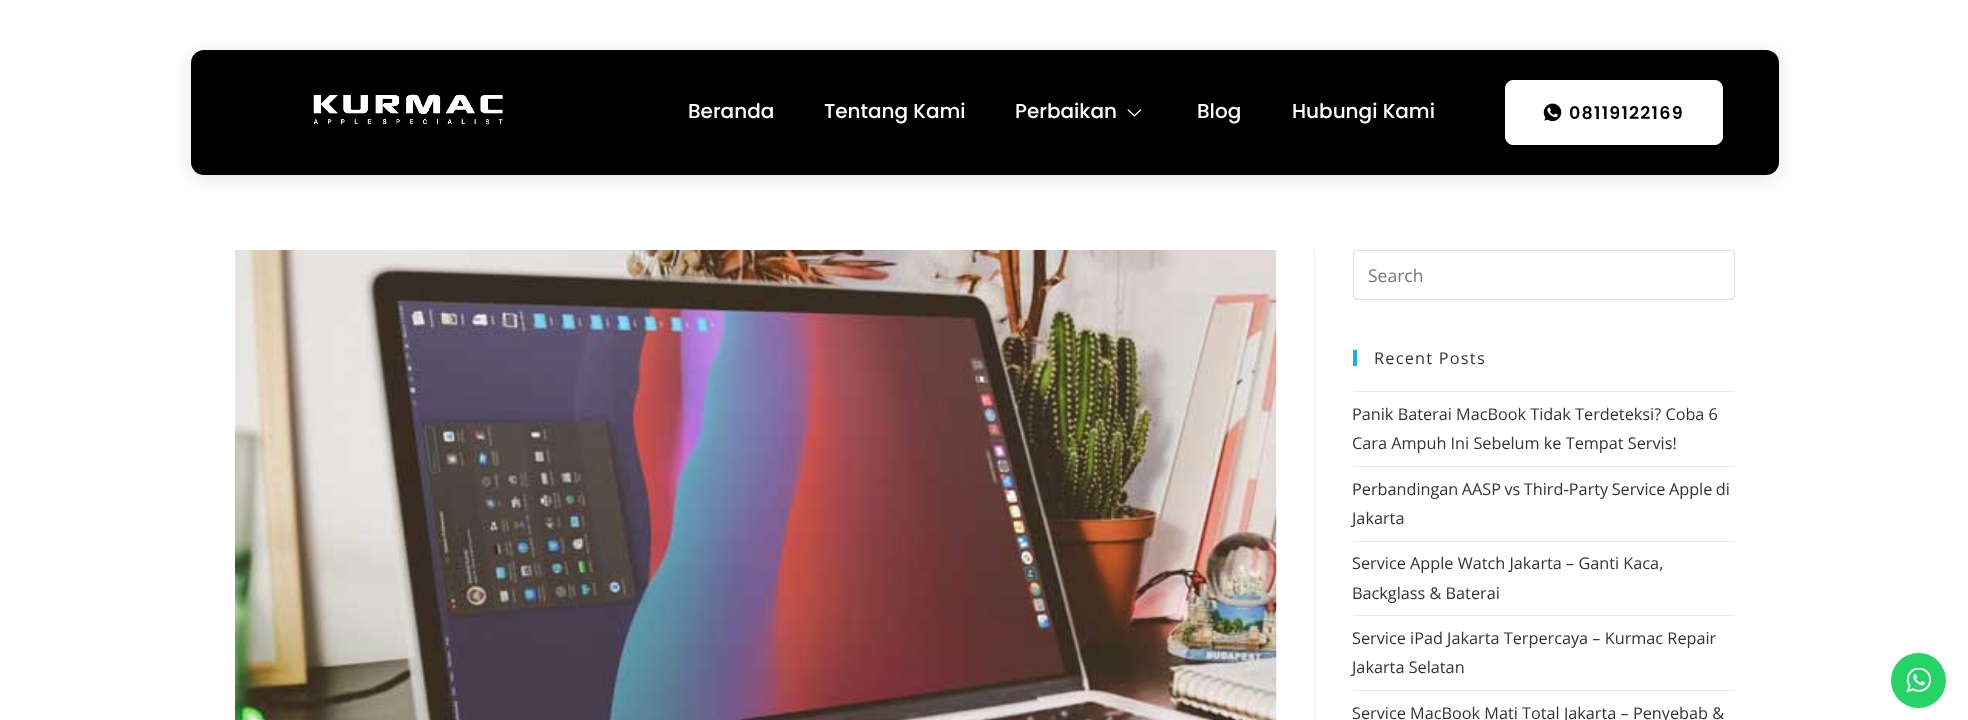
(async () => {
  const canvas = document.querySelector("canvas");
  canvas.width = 1968;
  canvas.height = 720;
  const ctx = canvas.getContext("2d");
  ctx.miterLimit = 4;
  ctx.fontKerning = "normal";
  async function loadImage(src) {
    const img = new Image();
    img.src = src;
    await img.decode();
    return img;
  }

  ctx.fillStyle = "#ffffff";
  ctx.fillRect(0, 0, 1968, 720);
  ctx.fillStyle = "rgba(0, 0, 0, 0.1)";
  ctx.filter = "blur(9.5px)";
  ctx.beginPath();
  ctx.roundRect(191, 54, 1588, 125, 13);
  ctx.fill();
  ctx.filter = "none";
  ctx.fillStyle = "#000000";
  ctx.beginPath();
  ctx.roundRect(191, 50, 1588, 125, 13);
  ctx.fill();
  ctx.drawImage(await loadImage("img/1.png"), 313, 94, 190, 31);
  ctx.drawImage(await loadImage("img/2.png"), 1127, 109, 15, 8);
  ctx.fillStyle = "#ffffff";
  ctx.beginPath();
  ctx.roundRect(1505.5, 80.5, 217, 64, 7.5);
  ctx.fill();
  ctx.strokeStyle = "#ffffff";
  ctx.stroke();
  ctx.drawImage(await loadImage("img/3.png"), 1543, 103, 19, 19);
  ctx.fillStyle = "#f1f1f1";
  ctx.fillRect(1314, 250, 1, 470);
  ctx.drawImage(await loadImage("img/4.png"), 235, 250, 1042, 470);
  ctx.beginPath();
  ctx.roundRect(1353.5, 250.5, 381, 49, 3.5);
  ctx.strokeStyle = "#dddddd";
  ctx.stroke();
  for (const [x, y, w, h, color] of [
    [1353, 350, 4, 16, "#13aff0"],
    [1353, 391, 382, 1, "#e9e9e9"],
    [1353, 466, 382, 1, "#e9e9e9"],
    [1353, 541, 382, 1, "#e9e9e9"],
    [1353, 615, 382, 1, "#e9e9e9"],
    [1353, 690, 382, 1, "#e9e9e9"],
  ]) {
    ctx.fillStyle = color;
    ctx.fillRect(x, y, w, h);
  }
  ctx.fillStyle = "#25d366";
  ctx.beginPath();
  ctx.arc(1918.5, 680.5, 27.5, 0, Math.PI * 2);
  ctx.fill();
  ctx.drawImage(await loadImage("img/5.png"), 1906, 668, 25, 25);
  ctx.font = "500 20px Poppins";
  ctx.fillStyle = "#ffffff";
  for (const [text, x, y] of [
    ["Beranda", 688, 118],
    ["Tentang Kami", 824, 118],
    ["Perbaikan", 1015, 118],
    ["Blog", 1197, 118],
    ["Hubungi Kami", 1292, 118],
  ]) {
    ctx.fillText(text, x, y);
  }
  ctx.letterSpacing = "1.25px";
  ctx.font = "600 17.5px Poppins";
  ctx.fillStyle = "#000000";
  ctx.fillText("08119122169", 1569, 119);
  ctx.letterSpacing = "0px";
  ctx.font = "17.5px Open Sans";
  ctx.fillStyle = "#757575";
  ctx.fillText("Search", 1368, 282);
  ctx.letterSpacing = "1.25px";
  ctx.font = "16.25px Open Sans";
  ctx.fillStyle = "#333333";
  ctx.fillText("Recent Posts", 1374, 364);
  ctx.letterSpacing = "0px";
  ctx.fillText("Panik Baterai MacBook Tidak Terdeteksi? Coba 6", 1352, 420);
  ctx.fillText("Cara Ampuh Ini Sebelum ke Tempat Servis!", 1352, 449);
  ctx.wordSpacing = "-0.75px";
  ctx.fillText("Perbandingan AASP vs Third‑Party Service Apple di", 1352, 495);
  ctx.wordSpacing = "0px";
  for (const [text, x, y] of [
    ["Jakarta", 1352, 524],
    ["Service Apple Watch Jakarta – Ganti Kaca,", 1352, 569],
    ["Backglass & Baterai", 1352, 599],
    ["Service iPad Jakarta Terpercaya – Kurmac Repair", 1352, 644],
    ["Jakarta Selatan", 1352, 673],
    ["Service MacBook Mati Total Jakarta – Penyebab &", 1352, 719],
  ]) {
    ctx.fillText(text, x, y);
  }
})();
